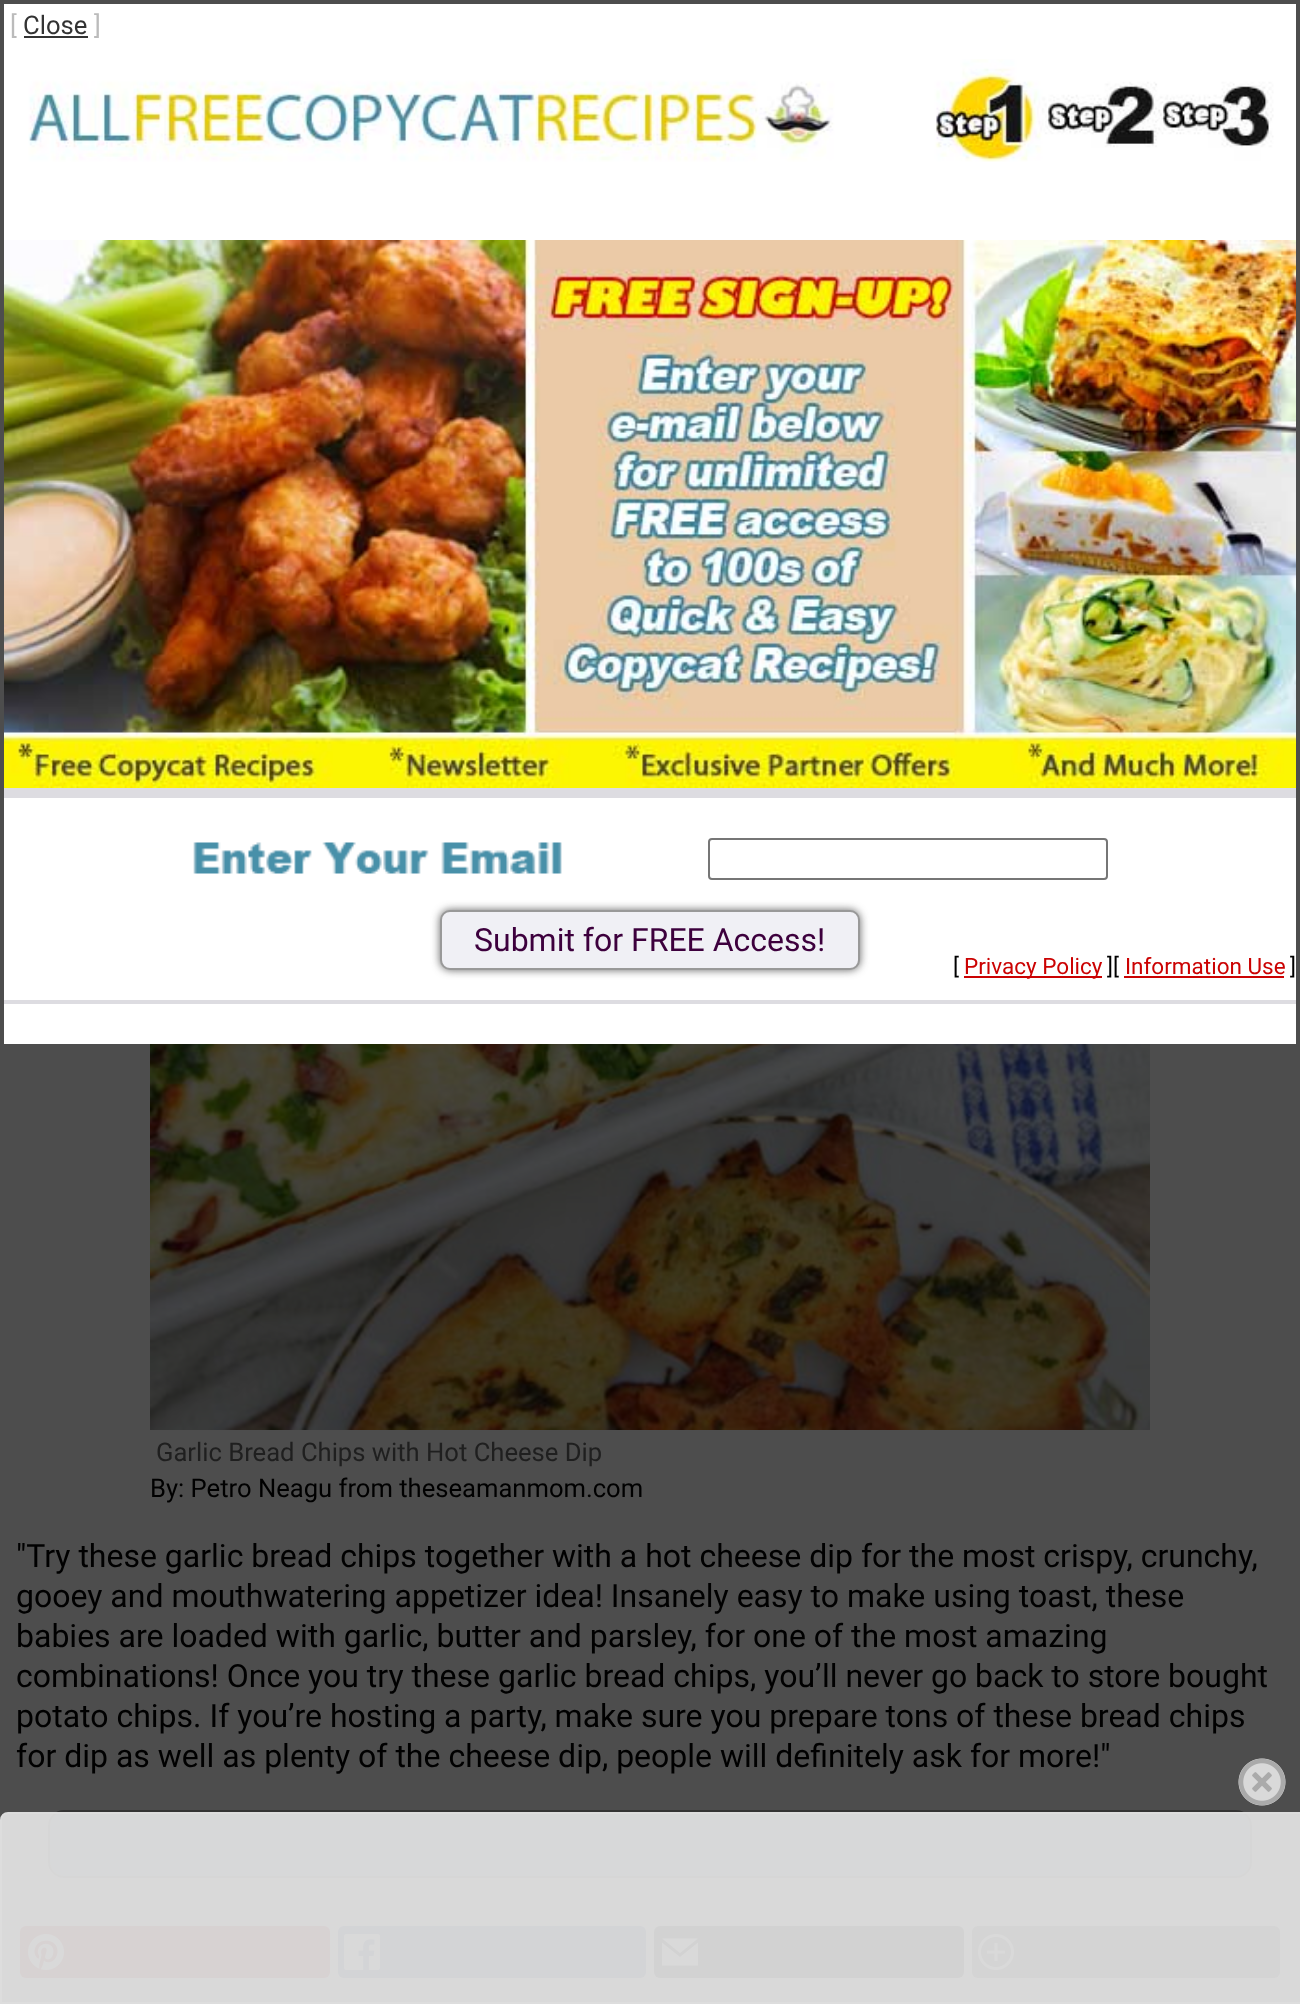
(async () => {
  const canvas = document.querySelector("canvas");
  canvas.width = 1300;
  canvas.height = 2004;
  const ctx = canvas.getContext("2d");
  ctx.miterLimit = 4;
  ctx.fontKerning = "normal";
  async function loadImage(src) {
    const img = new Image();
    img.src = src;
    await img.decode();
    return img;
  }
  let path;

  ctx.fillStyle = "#4d4d4d";
  ctx.fillRect(0, 0, 1300, 2004);
  ctx.fillStyle = "#ffffff";
  ctx.fillRect(4, 4, 1292, 1040);
  ctx.fillStyle = "#333333";
  ctx.fillRect(24, 36, 64, 2);
  ctx.drawImage(await loadImage("img/1.png"), 28, 59, 1246, 103);
  ctx.drawImage(await loadImage("img/2.png"), 4, 240, 1292, 548);
  ctx.fillStyle = "#dddce1";
  ctx.fillRect(4, 788, 1292, 10);
  ctx.fillRect(4, 1000, 1292, 4);
  ctx.drawImage(await loadImage("img/3.png"), 193, 842, 369, 32);
  ctx.beginPath();
  ctx.roundRect(709, 839, 398, 40, 3);
  ctx.strokeStyle = "#767676";
  ctx.lineWidth = 2;
  ctx.stroke();
  ctx.fillStyle = "rgba(50, 50, 50, 0.75)";
  ctx.filter = "blur(4px)";
  ctx.beginPath();
  ctx.roundRect(440, 910, 420, 60, 10);
  ctx.fill();
  ctx.filter = "none";
  ctx.fillStyle = "#f0f0f5";
  ctx.beginPath();
  ctx.roundRect(441, 911, 418, 58, 9);
  ctx.fill();
  ctx.strokeStyle = "#999999";
  ctx.stroke();
  ctx.fillStyle = "#cb0202";
  ctx.fillRect(964, 976, 138, 2);
  ctx.fillRect(1124, 976, 160, 2);
  ctx.drawImage(await loadImage("img/4.png"), 150, 1044, 1000, 386);
  ctx.fillStyle = "#3c4347";
  ctx.beginPath();
  ctx.roundRect(49, 1811, 1202, 66, 15);
  ctx.fill();
  ctx.strokeStyle = "#333333";
  ctx.stroke();
  ctx.fillStyle = "#3d0a0c";
  ctx.beginPath();
  ctx.roundRect(20, 1926, 310, 52, 6);
  ctx.fill();
  ctx.drawImage(await loadImage("img/5.png"), 28, 1934, 36, 36);
  ctx.fillStyle = "#121b2e";
  ctx.beginPath();
  ctx.roundRect(338, 1926, 308, 52, 6);
  ctx.fill();
  ctx.drawImage(await loadImage("img/6.png"), 344, 1934, 36, 36);
  ctx.fillStyle = "#0f0f0f";
  ctx.beginPath();
  ctx.roundRect(654, 1926, 310, 52, 6);
  ctx.fill();
  ctx.fillStyle = "#4d4d4d";
  path = new Path2D("M680 1953L662 1938.5H698ZM680 1957L662 1942.5V1965.5H698V1942.5Z");
  ctx.fill(path);
  ctx.fillStyle = "#1f1f1f";
  ctx.beginPath();
  ctx.roundRect(972, 1926, 308, 52, 6);
  ctx.fill();
  ctx.drawImage(await loadImage("img/7.png"), 978, 1934, 36, 36);
  ctx.fillStyle = "rgba(235, 235, 235, 0.89)";
  path = new Path2D("M8 1813H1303V2003H1V1820C1 1816 4 1813 8 1813Z");
  ctx.fill(path);
  ctx.strokeStyle = "#dddddd";
  ctx.stroke(path);
  ctx.drawImage(await loadImage("img/8.png"), 1238, 1758, 48, 48);
  ctx.font = "25.6px Roboto";
  ctx.fillStyle = "#bbbbbb";
  ctx.fillText("[", 10, 34);
  ctx.fillStyle = "#333333";
  ctx.fillText("Close", 23, 34);
  ctx.fillStyle = "#bbbbbb";
  ctx.fillText("]", 94, 34);
  ctx.font = "32px Roboto";
  ctx.fillStyle = "#3d003d";
  ctx.fillText("Submit for FREE Access!", 474, 951);
  ctx.font = "22.5px Roboto";
  ctx.fillStyle = "#000000";
  ctx.fillText("[", 953, 974);
  ctx.fillStyle = "#cb0202";
  ctx.fillText("Privacy Policy", 964, 974);
  ctx.fillStyle = "#000000";
  ctx.fillText("][", 1107, 974);
  ctx.fillStyle = "#cb0202";
  ctx.fillText("Information Use", 1125, 974);
  ctx.fillStyle = "#000000";
  ctx.fillText("]", 1290, 974);
  ctx.font = "25.6px Roboto";
  ctx.fillStyle = "#1f1f1f";
  ctx.fillText("Garlic Bread Chips with Hot Cheese Dip", 156, 1461);
  ctx.fillStyle = "#000000";
  ctx.fillText("By: Petro Neagu from theseamanmom.com", 150, 1497);
  ctx.font = "32px Roboto";
  for (const [text, x, y] of [
    ["\"Try these garlic bread chips together with a hot cheese dip for the most crispy, crunchy,", 16, 1567],
    ["gooey and mouthwatering appetizer idea! Insanely easy to make using toast, these", 16, 1607],
    ["babies are loaded with garlic, butter and parsley, for one of the most amazing", 16, 1647],
    ["combinations! Once you try these garlic bread chips, you’ll never go back to store bought", 16, 1687],
    ["potato chips. If you’re hosting a party, make sure you prepare tons of these bread chips", 16, 1727],
    ["for dip as well as plenty of the cheese dip, people will definitely ask for more!\"", 16, 1767],
  ]) {
    ctx.fillText(text, x, y);
  }
})();
